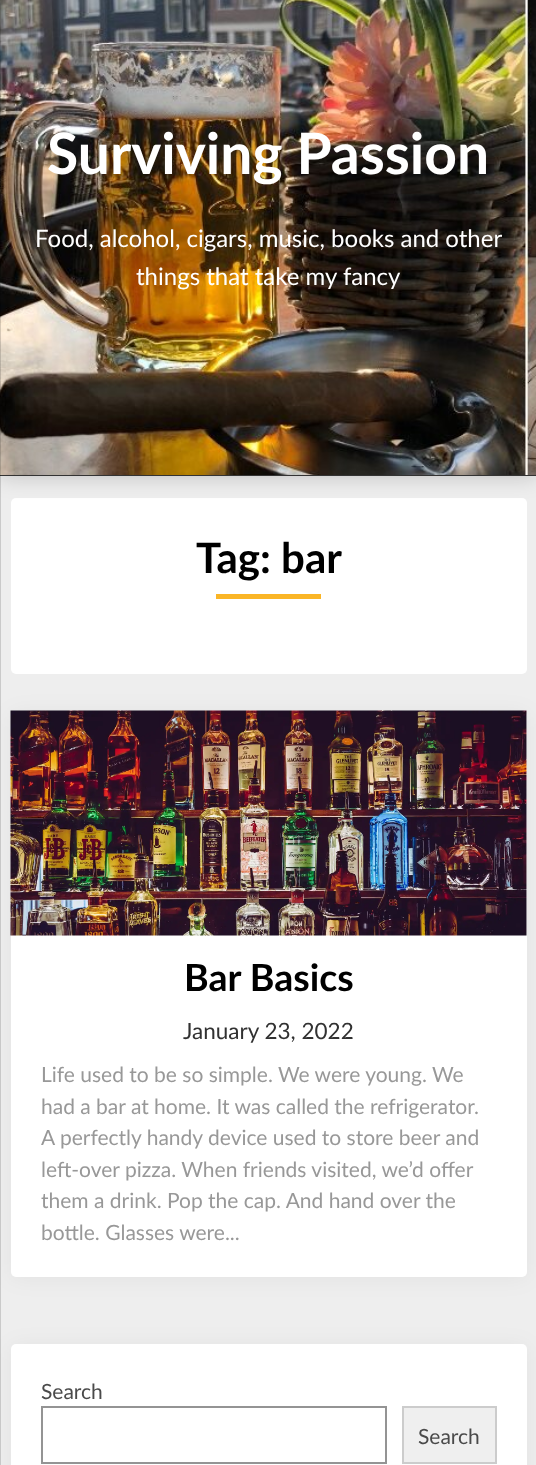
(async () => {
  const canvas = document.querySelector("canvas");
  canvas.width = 536;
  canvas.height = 1465;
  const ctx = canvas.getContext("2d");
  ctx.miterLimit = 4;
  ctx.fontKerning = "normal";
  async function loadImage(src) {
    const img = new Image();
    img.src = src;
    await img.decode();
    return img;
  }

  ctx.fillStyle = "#eeeeee";
  ctx.fillRect(0, 0, 536, 1465);
  ctx.fillStyle = "#ffffff";
  ctx.beginPath();
  ctx.roundRect(11, 498, 516, 176, 5);
  ctx.fill();
  ctx.fillStyle = "rgba(0, 0, 0, 0.2)";
  ctx.filter = "blur(11px)";
  ctx.beginPath();
  ctx.rect(0, -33, 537, 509);
  ctx.fill();
  ctx.filter = "none";
  ctx.fillStyle = "#333333";
  ctx.fillRect(0, 475, 536, 1);
  ctx.drawImage(await loadImage("img/1.png"), 0, 0, 536, 475);
  ctx.fillStyle = "rgba(0, 0, 0, 0.05)";
  ctx.filter = "blur(11px)";
  ctx.beginPath();
  ctx.roundRect(11, 713, 516, 565, 5);
  ctx.fill();
  ctx.filter = "none";
  ctx.filter = "blur(11px)";
  ctx.beginPath();
  ctx.roundRect(11, 1346, 516, 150, 5);
  ctx.fill();
  ctx.filter = "none";
  ctx.fillStyle = "rgba(0, 0, 0, 0.15)";
  ctx.fillRect(0, 0, 1, 1465);
  ctx.fillStyle = "#fab526";
  ctx.fillRect(216, 594, 105, 5);
  ctx.fillStyle = "#ffffff";
  ctx.beginPath();
  ctx.roundRect(11, 711, 516, 566, 5);
  ctx.fill();
  ctx.drawImage(await loadImage("img/2.png"), 10, 710, 517, 226);
  ctx.beginPath();
  ctx.roundRect(11, 1344, 516, 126, 5);
  ctx.fill();
  ctx.strokeStyle = "#949494";
  ctx.lineWidth = 2;
  ctx.strokeRect(42, 1407, 344, 56);
  ctx.fillStyle = "#efefef";
  ctx.beginPath();
  ctx.rect(403, 1407, 93, 56);
  ctx.fill();
  ctx.strokeStyle = "#cccccc";
  ctx.stroke();
  ctx.font = "bold 57px Lato";
  ctx.fillStyle = "#ffffff";
  ctx.fillText("Surviving Passion", 47, 174);
  ctx.font = "24px Lato";
  ctx.fillText("Food, alcohol, cigars, music, books and other", 35, 247);
  ctx.fillText("things that take my fancy", 136, 285);
  ctx.font = "bold 42px Lato";
  ctx.fillStyle = "#000000";
  ctx.fillText("Tag: bar", 196, 573);
  ctx.font = "bold 37.5px Lato";
  ctx.fillText("Bar Basics", 184, 991);
  ctx.font = "22.5px Lato";
  ctx.fillStyle = "#313131";
  ctx.fillText("January 23, 2022", 183, 1039);
  ctx.font = "21px Lato";
  ctx.fillStyle = "#989898";
  for (const [text, x, y] of [
    ["Life used to be so simple. We were young. We", 41, 1082],
    ["had a bar at home. It was called the refrigerator.", 41, 1114],
    ["A perfectly handy device used to store beer and", 41, 1145],
    ["left-over pizza. When friends visited, we’d offer", 41, 1177],
    ["them a drink. Pop the cap. And hand over the", 41, 1208],
    ["bottle. Glasses were...", 41, 1240],
  ]) {
    ctx.fillText(text, x, y);
  }
  ctx.fillStyle = "#4a4a4a";
  ctx.fillText("Search", 41, 1399);
  ctx.fillText("Search", 418, 1444);
})();
